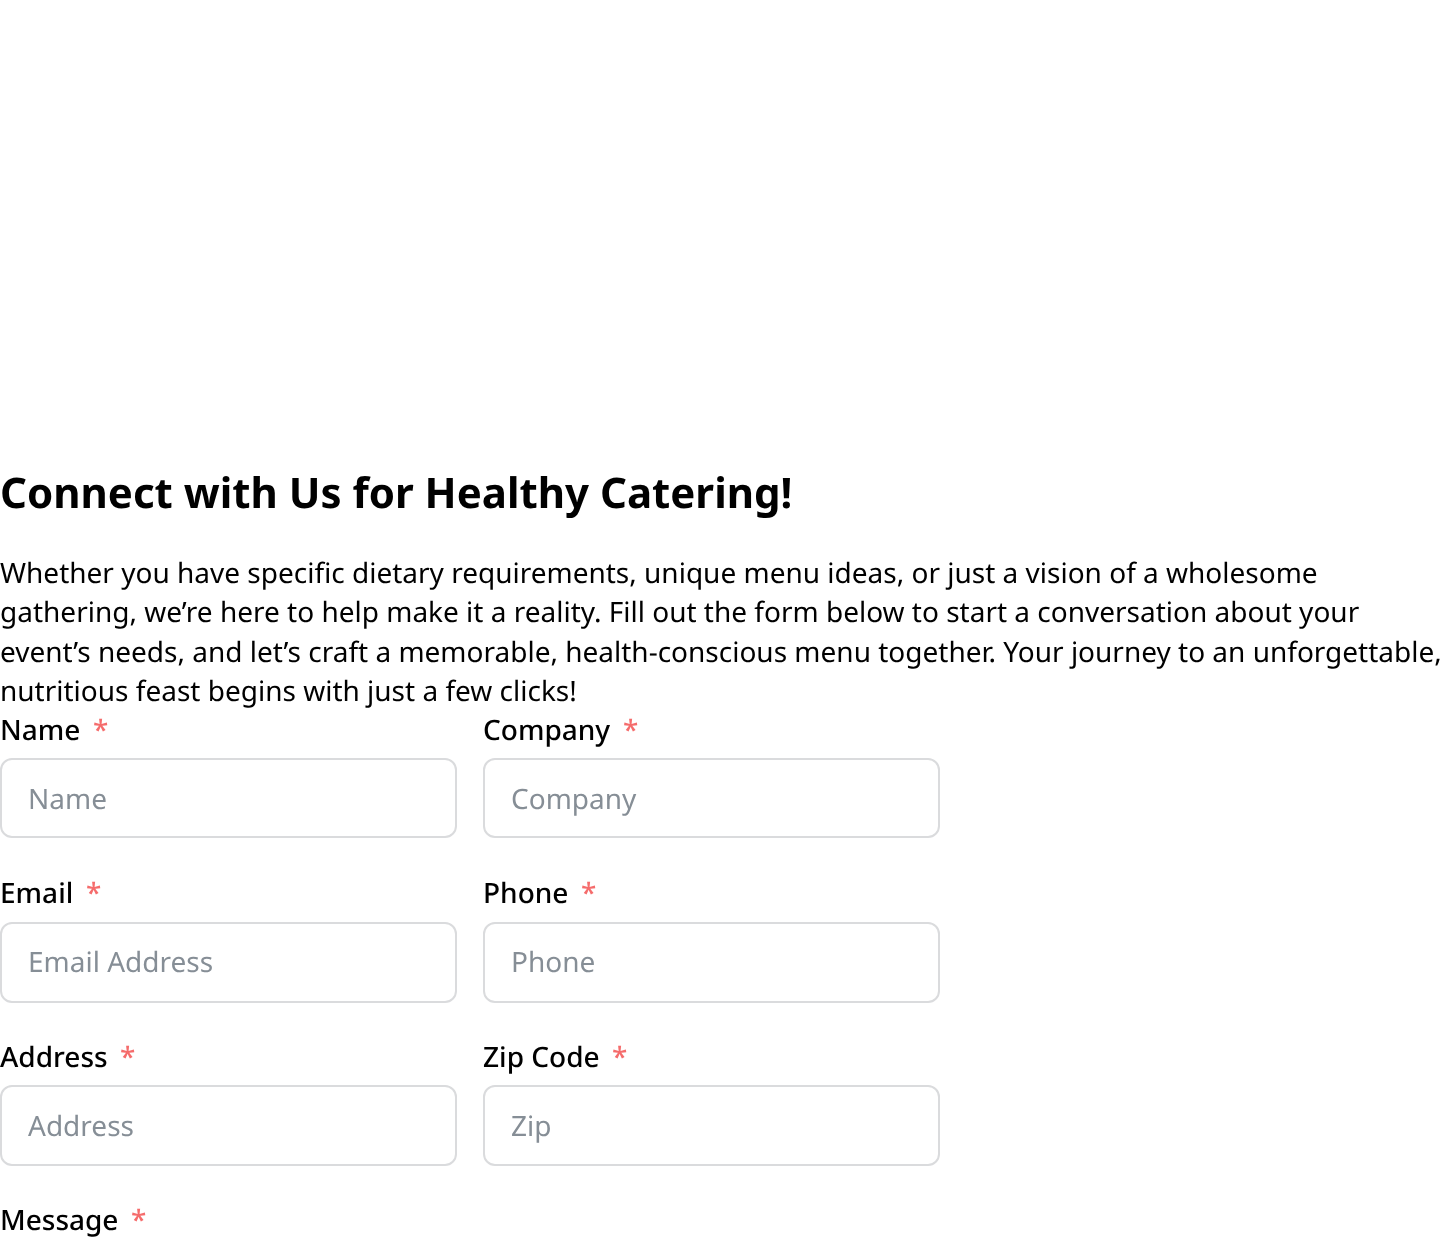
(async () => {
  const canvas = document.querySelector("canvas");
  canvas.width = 1445;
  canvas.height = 1242;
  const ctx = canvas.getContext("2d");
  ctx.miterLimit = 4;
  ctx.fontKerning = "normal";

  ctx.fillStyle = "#ffffff";
  ctx.fillRect(0, 0, 1445, 1242);
  ctx.beginPath();
  ctx.roundRect(1, 759, 455, 78, 11);
  ctx.strokeStyle = "#dadbdd";
  ctx.lineWidth = 2;
  ctx.stroke();
  ctx.beginPath();
  ctx.roundRect(484, 759, 455, 78, 11);
  ctx.stroke();
  ctx.beginPath();
  ctx.roundRect(1, 923, 455, 79, 11);
  ctx.stroke();
  ctx.beginPath();
  ctx.roundRect(484, 923, 455, 79, 11);
  ctx.stroke();
  ctx.beginPath();
  ctx.roundRect(1, 1086, 455, 79, 11);
  ctx.stroke();
  ctx.beginPath();
  ctx.roundRect(484, 1086, 455, 79, 11);
  ctx.stroke();
  ctx.font = "bold 42px Noto Sans";
  ctx.fillStyle = "#000000";
  ctx.fillText("Connect with Us for Healthy Catering!", 0, 508);
  ctx.font = "28px Noto Sans";
  for (const [text, x, y] of [
    ["Whether you have specific dietary requirements, unique menu ideas, or just a vision of a wholesome", 0, 583],
    ["gathering, we’re here to help make it a reality. Fill out the form below to start a conversation about your", 0, 622],
    ["event’s needs, and let’s craft a memorable, health-conscious menu together. Your journey to an unforgettable,", 0, 662],
    ["nutritious feast begins with just a few clicks!", 0, 701],
  ]) {
    ctx.fillText(text, x, y);
  }
  ctx.font = "500 28px Noto Sans";
  ctx.fillText("Name", 0, 740);
  ctx.fillStyle = "#f56c6c";
  ctx.fillText("*", 93, 740);
  ctx.font = "28px Noto Sans";
  ctx.fillStyle = "#868e96";
  ctx.fillText("Name", 28, 809);
  ctx.font = "500 28px Noto Sans";
  ctx.fillStyle = "#000000";
  ctx.fillText("Company", 483, 740);
  ctx.fillStyle = "#f56c6c";
  ctx.fillText("*", 623, 740);
  ctx.font = "28px Noto Sans";
  ctx.fillStyle = "#868e96";
  ctx.fillText("Company", 511, 809);
  ctx.font = "500 28px Noto Sans";
  ctx.fillStyle = "#000000";
  ctx.fillText("Email", 0, 903);
  ctx.fillStyle = "#f56c6c";
  ctx.fillText("*", 86, 903);
  ctx.font = "28px Noto Sans";
  ctx.fillStyle = "#868e96";
  ctx.fillText("Email Address", 28, 972);
  ctx.font = "500 28px Noto Sans";
  ctx.fillStyle = "#000000";
  ctx.fillText("Phone", 483, 903);
  ctx.fillStyle = "#f56c6c";
  ctx.fillText("*", 581, 903);
  ctx.font = "28px Noto Sans";
  ctx.fillStyle = "#868e96";
  ctx.fillText("Phone", 511, 972);
  ctx.font = "500 28px Noto Sans";
  ctx.fillStyle = "#000000";
  ctx.fillText("Address", 0, 1067);
  ctx.fillStyle = "#f56c6c";
  ctx.fillText("*", 120, 1067);
  ctx.font = "28px Noto Sans";
  ctx.fillStyle = "#868e96";
  ctx.fillText("Address", 28, 1136);
  ctx.font = "500 28px Noto Sans";
  ctx.fillStyle = "#000000";
  ctx.fillText("Zip Code", 483, 1067);
  ctx.fillStyle = "#f56c6c";
  ctx.fillText("*", 612, 1067);
  ctx.font = "28px Noto Sans";
  ctx.fillStyle = "#868e96";
  ctx.fillText("Zip", 511, 1136);
  ctx.font = "500 28px Noto Sans";
  ctx.fillStyle = "#000000";
  ctx.fillText("Message", 0, 1230);
  ctx.fillStyle = "#f56c6c";
  ctx.fillText("*", 131, 1230);
})();
